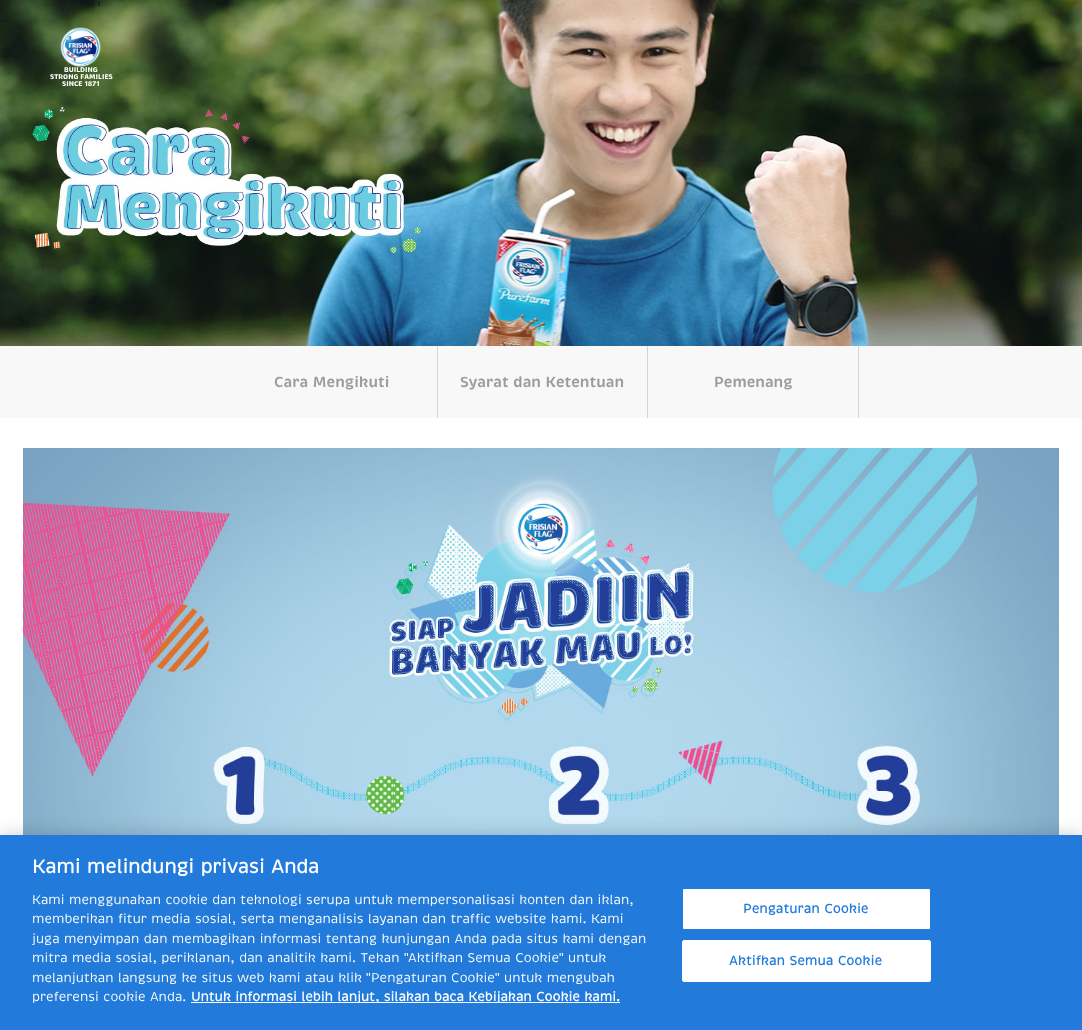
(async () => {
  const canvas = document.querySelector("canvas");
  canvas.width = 1082;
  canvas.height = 1030;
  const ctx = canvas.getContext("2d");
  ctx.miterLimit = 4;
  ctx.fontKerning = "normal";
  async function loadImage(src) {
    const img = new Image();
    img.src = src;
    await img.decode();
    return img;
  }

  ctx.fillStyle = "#ffffff";
  ctx.fillRect(0, 0, 1082, 1030);
  ctx.drawImage(await loadImage("img/1.png"), 0, 0, 1082, 346);
  ctx.drawImage(await loadImage("img/2.png"), 60, 27, 41, 40);
  for (const [x, y, w, h, color] of [
    [0, 346, 1082, 72, "#f8f8f8"],
    [437, 346, 1, 72, "#d5d5d5"],
    [647, 346, 1, 72, "#d5d5d5"],
    [858, 346, 1, 72, "#d5d5d5"],
  ]) {
    ctx.fillStyle = color;
    ctx.fillRect(x, y, w, h);
  }
  ctx.drawImage(await loadImage("img/3.png"), 23, 448, 1036, 387);
  ctx.fillStyle = "rgba(0, 0, 0, 0.2)";
  ctx.filter = "blur(9px)";
  ctx.beginPath();
  ctx.rect(0, 835, 1082, 195);
  ctx.fill();
  ctx.filter = "none";
  ctx.fillStyle = "#227ada";
  ctx.fillRect(0, 835, 1082, 195);
  ctx.fillStyle = "#ffffff";
  ctx.fillRect(191, 1002, 429, 1);
  ctx.beginPath();
  ctx.roundRect(682.5, 888.5, 248, 41, 1.5);
  ctx.fill();
  ctx.strokeStyle = "#227ada";
  ctx.stroke();
  ctx.beginPath();
  ctx.roundRect(682.5, 940.5, 248, 41, 1.5);
  ctx.fill();
  ctx.strokeStyle = "#ffffff";
  ctx.stroke();
  ctx.font = "bold 7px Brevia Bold";
  ctx.fillStyle = "#152117";
  ctx.fillText("1", 97, 6);
  ctx.fillStyle = "#ffffff";
  for (const [text, x, y] of [
    ["BUILDING", 64, 72],
    ["STRONG FAMILIES", 50, 79],
    ["SINCE 1871", 62, 86],
  ]) {
    ctx.fillText(text, x, y);
  }
  ctx.font = "600 15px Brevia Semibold";
  ctx.fillStyle = "#9c9c9c";
  for (const [text, x, y] of [
    ["Cara Mengikuti", 274, 387],
    ["Syarat dan Ketentuan", 460, 387],
    ["Pemenang", 714, 387],
  ]) {
    ctx.fillText(text, x, y);
  }
  ctx.font = "bold 19.25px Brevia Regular";
  ctx.fillStyle = "#ffffff";
  ctx.fillText("Kami melindungi privasi Anda", 32, 873);
  ctx.font = "13px Brevia Regular";
  for (const [text, x, y] of [
    ["Kami menggunakan cookie dan teknologi serupa untuk mempersonalisasi konten dan iklan,", 32, 904],
    ["memberikan fitur media sosial, serta menganalisis layanan dan traffic website kami. Kami", 32, 923],
    ["juga menyimpan dan membagikan informasi tentang kunjungan Anda pada situs kami dengan", 32, 943],
    ["mitra media sosial, periklanan, dan analitik kami. Tekan", 32, 962],
  ]) {
    ctx.fillText(text, x, y);
  }
  ctx.font = "13px Liberation Sans";
  ctx.fillText("\"", 404, 962);
  ctx.font = "13px Brevia Regular";
  ctx.fillText("Aktifkan Semua Cookie", 408, 962);
  ctx.font = "13px Liberation Sans";
  ctx.fillText("\"", 559, 962);
  ctx.font = "13px Brevia Regular";
  ctx.fillText("untuk", 568, 962);
  ctx.fillText("melanjutkan langsung ke situs web kami atau klik", 32, 982);
  ctx.font = "13px Liberation Sans";
  ctx.fillText("\"", 366, 982);
  ctx.font = "13px Brevia Regular";
  ctx.fillText("Pengaturan Cookie", 371, 982);
  ctx.font = "13px Liberation Sans";
  ctx.fillText("\"", 495, 982);
  ctx.font = "13px Brevia Regular";
  ctx.fillText("untuk mengubah", 504, 982);
  ctx.fillText("preferensi cookie Anda.", 32, 1001);
  ctx.font = "bold 13px Brevia Regular";
  ctx.fillText("Untuk informasi lebih lanjut, silakan baca Kebijakan Cookie kami.", 191, 1001);
  ctx.letterSpacing = "0.1px";
  ctx.fillStyle = "#227ada";
  ctx.fillText("Pengaturan Cookie", 743, 913);
  ctx.fillText("Aktifkan Semua Cookie", 729, 965);
})();
